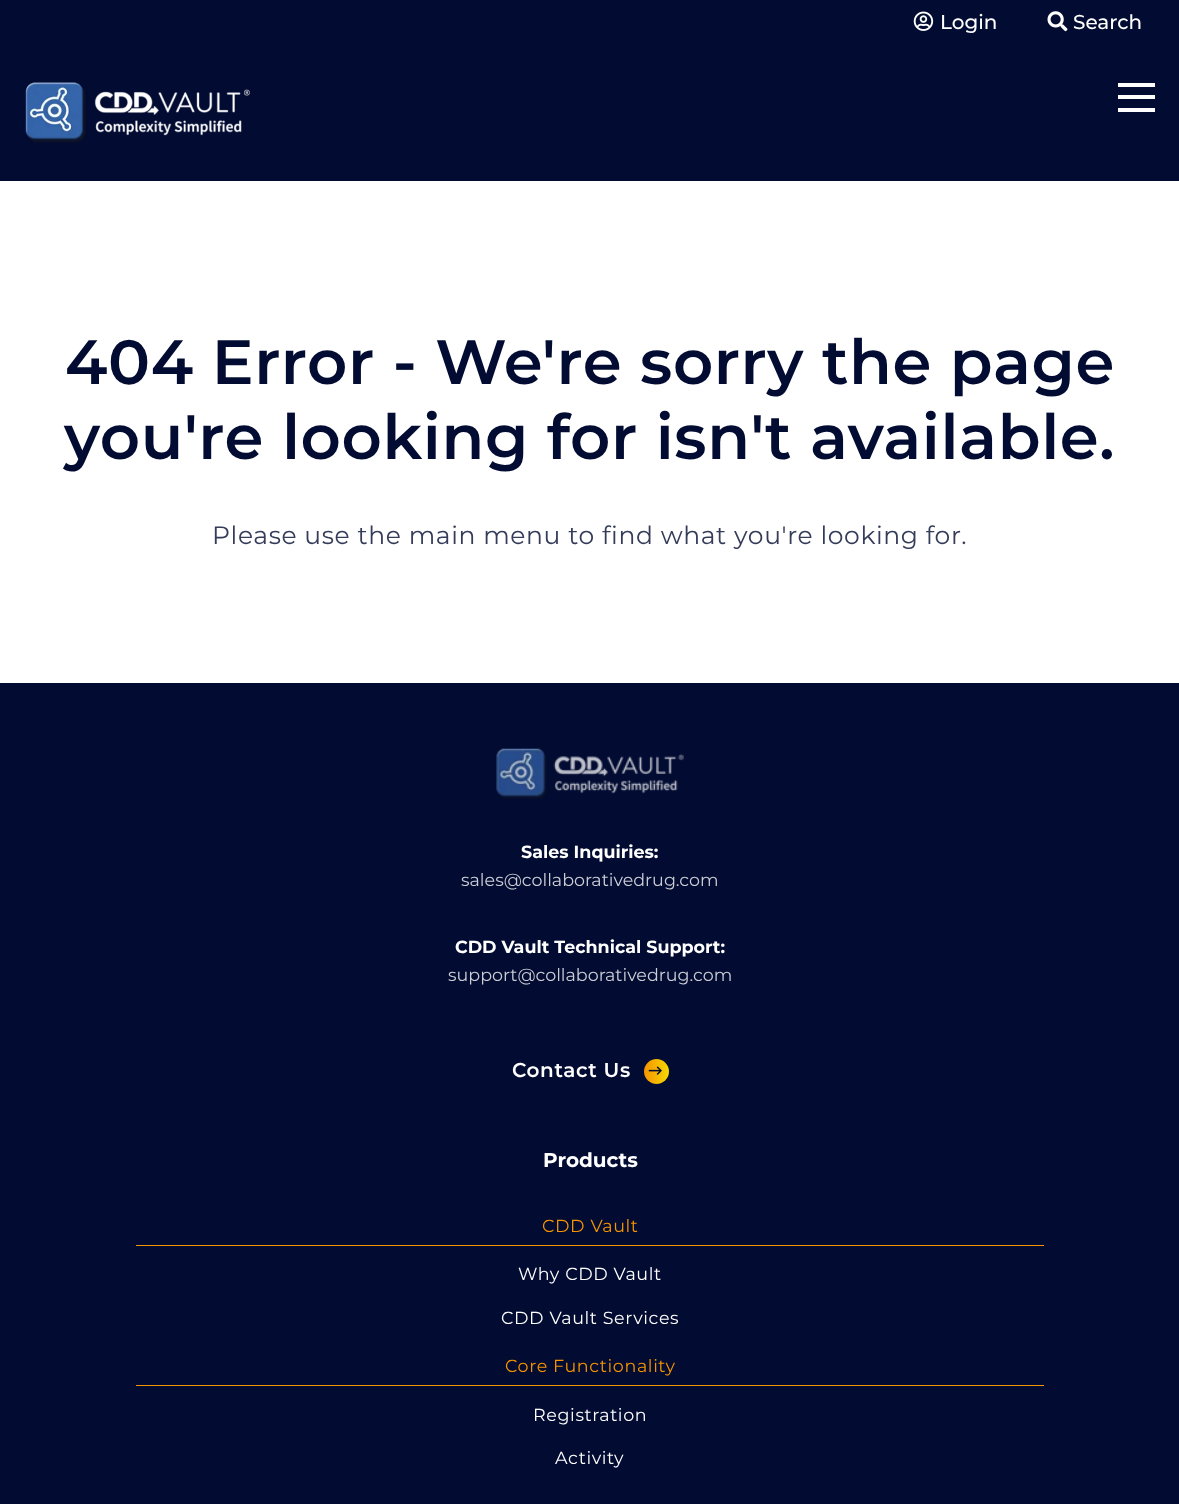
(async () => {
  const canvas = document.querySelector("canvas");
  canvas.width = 1179;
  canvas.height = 1504;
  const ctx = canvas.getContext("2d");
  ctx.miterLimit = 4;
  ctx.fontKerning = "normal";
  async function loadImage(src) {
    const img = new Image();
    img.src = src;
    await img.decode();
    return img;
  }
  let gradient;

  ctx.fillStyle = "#ffffff";
  ctx.fillRect(0, 0, 1179, 1504);
  ctx.fillStyle = "#020b31";
  ctx.fillRect(0, 0, 1179, 181);
  ctx.drawImage(await loadImage("img/1.png"), 913, 11, 21, 20);
  ctx.drawImage(await loadImage("img/2.png"), 1047, 11, 21, 21);
  ctx.drawImage(await loadImage("img/3.png"), 25, 82, 225, 61);
  for (const [x, y, w, h, color] of [
    [1118, 95, 37, 4, "#ffffff"],
    [1118, 83, 37, 4, "#ffffff"],
    [1118, 108, 37, 4, "#ffffff"],
    [0, 683, 1179, 821, "#020b31"],
  ]) {
    ctx.fillStyle = color;
    ctx.fillRect(x, y, w, h);
  }
  ctx.drawImage(await loadImage("img/4.png"), 496, 748, 188, 51);
  gradient = ctx.createLinearGradient(669, 1071, 644, 1071);
  gradient.addColorStop(0, "#f6d900");
  gradient.addColorStop(1, "#f69300");
  ctx.fillStyle = gradient;
  ctx.beginPath();
  ctx.arc(656.5, 1071.5, 12.5, 0, Math.PI * 2);
  ctx.fill();
  ctx.drawImage(await loadImage("img/5.png"), 648, 1066, 14, 9);
  ctx.fillStyle = "#f69300";
  ctx.fillRect(136, 1245, 908, 1);
  ctx.fillRect(136, 1385, 908, 1);
  ctx.font = "500 20px Montserrat";
  ctx.fillStyle = "#ffffff";
  ctx.fillText("Login", 940, 29);
  ctx.fillText("Search", 1073, 29);
  ctx.letterSpacing = "0.62px";
  ctx.font = "600 62.5px Montserrat";
  ctx.fillStyle = "#020b31";
  ctx.fillText("404 Error - We're sorry the page", 65, 384);
  ctx.fillText("you're looking for isn't available.", 64, 459);
  ctx.font = "25px Montserrat";
  ctx.fillStyle = "#353c5a";
  ctx.fillText("Please use the main menu to find what you're looking for.", 212, 544);
  ctx.letterSpacing = "0px";
  ctx.font = "bold 17.5px Montserrat";
  ctx.fillStyle = "#ffffff";
  ctx.fillText("Sales Inquiries:", 521, 858);
  ctx.font = "17.5px Montserrat";
  ctx.fillStyle = "#ccced6";
  ctx.fillText("sales@collaborativedrug.com", 461, 886);
  ctx.font = "bold 17.5px Montserrat";
  ctx.fillStyle = "#ffffff";
  ctx.fillText("CDD Vault Technical Support:", 455, 953);
  ctx.font = "17.5px Montserrat";
  ctx.fillStyle = "#ccced6";
  ctx.fillText("support@collaborativedrug.com", 448, 981);
  ctx.letterSpacing = "0.62px";
  ctx.font = "600 20px Montserrat";
  ctx.fillStyle = "#ffffff";
  ctx.fillText("Contact Us", 512, 1077);
  ctx.letterSpacing = "0px";
  ctx.font = "bold 20px Montserrat";
  ctx.fillText("Products", 543, 1167);
  ctx.letterSpacing = "0.62px";
  ctx.font = "17.5px Montserrat";
  ctx.fillStyle = "#f69300";
  ctx.fillText("CDD Vault", 542, 1232);
  ctx.fillStyle = "#ffffff";
  ctx.fillText("Why CDD Vault", 518, 1280);
  ctx.fillText("CDD Vault Services", 501, 1324);
  ctx.fillStyle = "#f69300";
  ctx.fillText("Core Functionality", 505, 1372);
  ctx.fillStyle = "#ffffff";
  ctx.fillText("Registration", 533, 1421);
  ctx.fillText("Activity", 555, 1464);
})();
